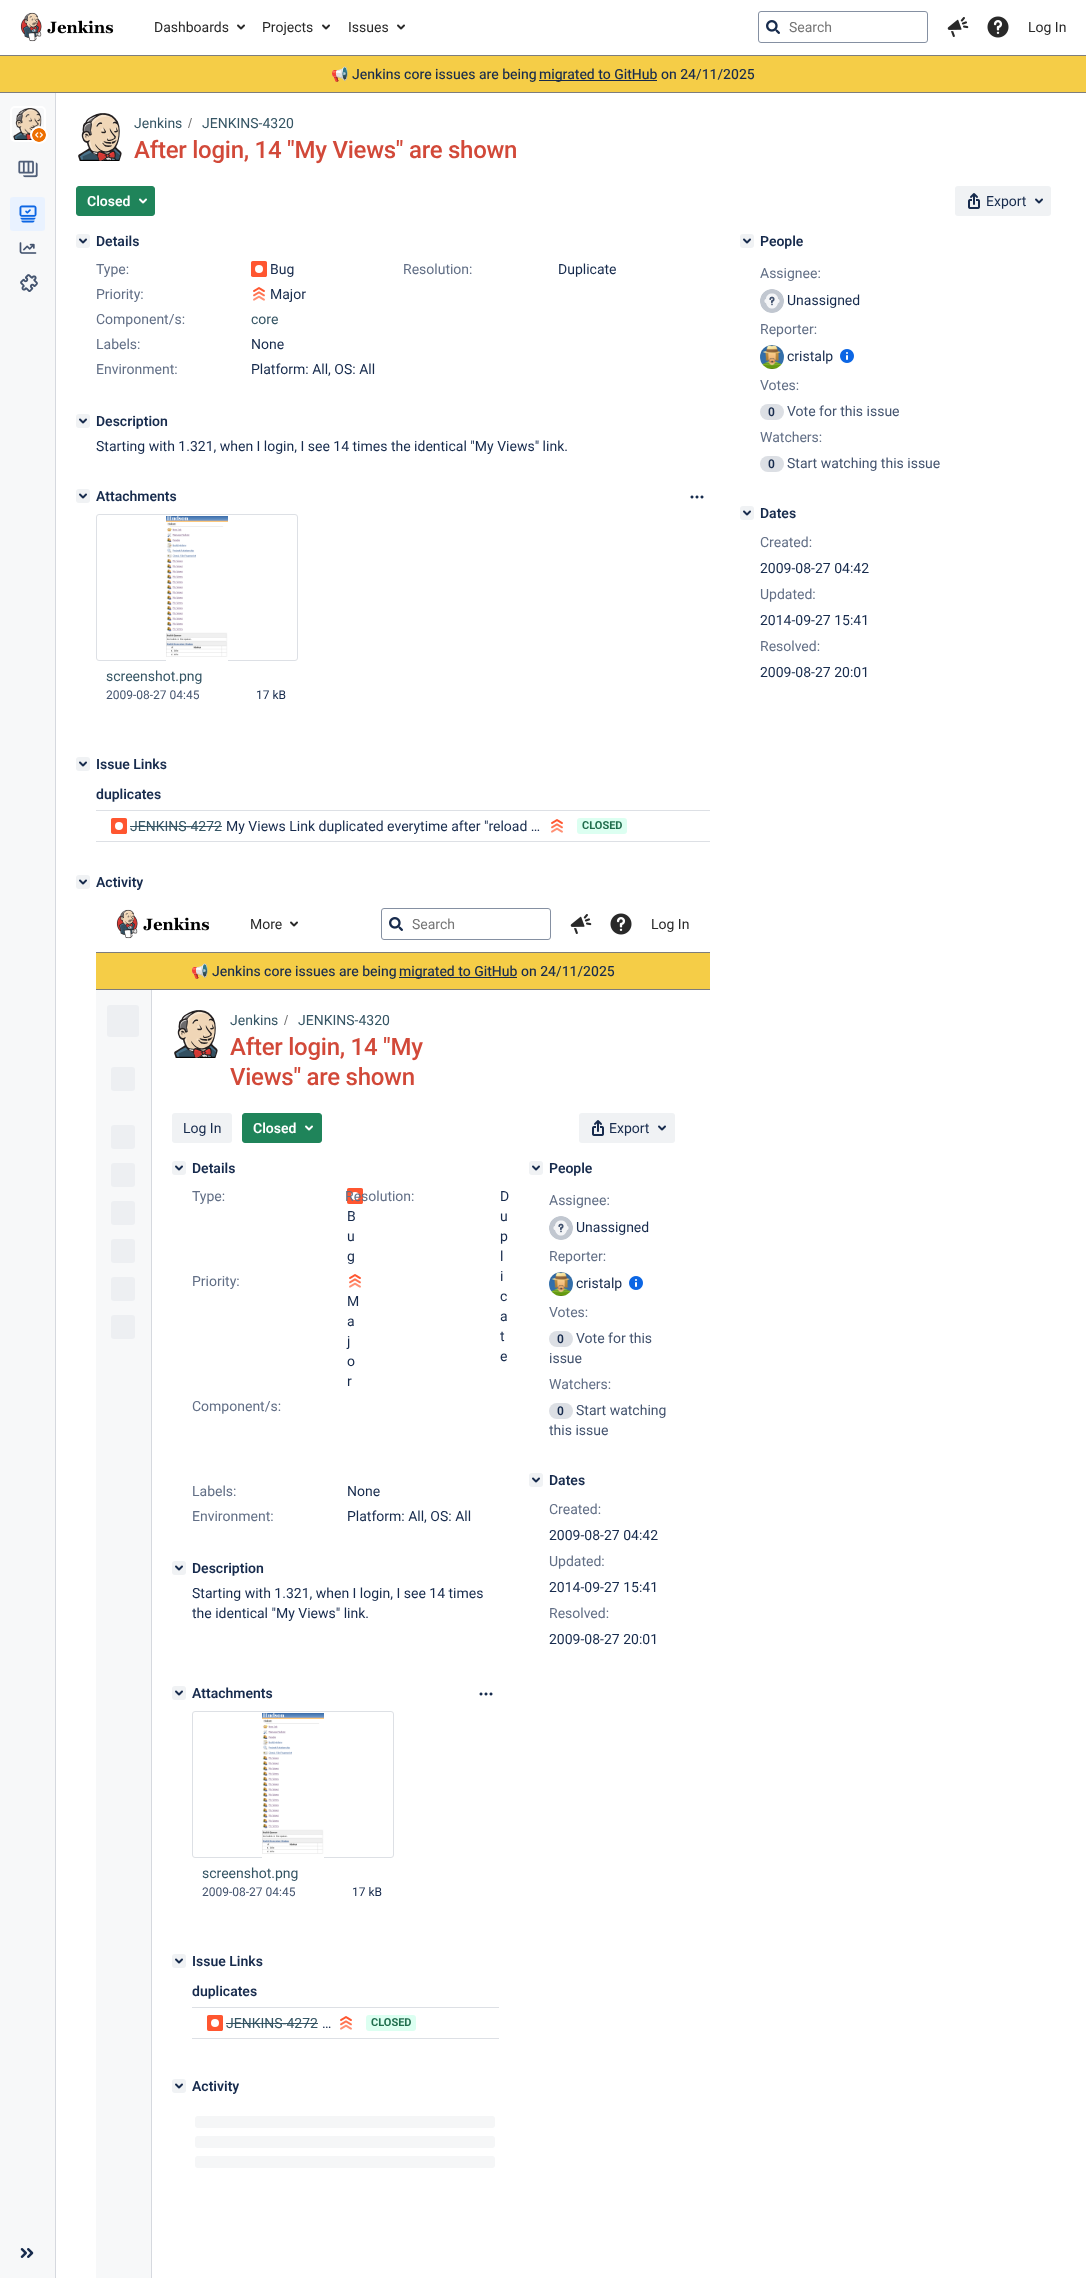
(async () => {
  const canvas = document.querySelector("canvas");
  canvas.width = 1086;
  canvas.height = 2278;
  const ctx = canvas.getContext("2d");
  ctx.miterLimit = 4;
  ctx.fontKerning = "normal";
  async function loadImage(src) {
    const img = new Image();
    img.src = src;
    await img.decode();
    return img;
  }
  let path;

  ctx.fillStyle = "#ffffff";
  ctx.fillRect(0, 0, 1086, 2278);
  ctx.fillStyle = "#7d7d7d";
  ctx.fillRect(0, 55, 1086, 1);
  ctx.drawImage(await loadImage("img/1.png"), 20, 12, 94, 30);
  ctx.drawImage(await loadImage("img/2.png"), 237, 24, 8, 6);
  ctx.drawImage(await loadImage("img/2.png"), 322, 24, 8, 6);
  ctx.drawImage(await loadImage("img/2.png"), 397, 24, 8, 6);
  ctx.beginPath();
  ctx.roundRect(758.5, 11.5, 169, 31, 2.5);
  ctx.strokeStyle = "#8590a2";
  ctx.stroke();
  ctx.drawImage(await loadImage("img/3.png"), 766, 20, 14, 14);
  ctx.drawImage(await loadImage("img/4.png"), 947, 17, 22, 20);
  ctx.drawImage(await loadImage("img/5.png"), 987, 16, 22, 22);
  for (const [x, y, w, h, color] of [
    [0, 56, 1086, 36, "#f5cd47"],
    [0, 92, 1086, 1, "#7d7d7d"],
    [539, 80, 118, 1, "#172b4d"],
    [0, 93, 55, 2185, "#f7f8f9"],
    [55, 93, 1, 2185, "#d6d9df"],
  ]) {
    ctx.fillStyle = color;
    ctx.fillRect(x, y, w, h);
  }
  ctx.beginPath();
  ctx.roundRect(11, 107, 34, 34, 4);
  ctx.strokeStyle = "#ffffff";
  ctx.lineWidth = 2;
  ctx.stroke();
  ctx.drawImage(await loadImage("img/6.png"), 13, 108, 29, 32);
  ctx.fillStyle = "#ffffff";
  ctx.beginPath();
  ctx.arc(39, 135, 9, 0, Math.PI * 2);
  ctx.fill();
  ctx.drawImage(await loadImage("img/7.png"), 32, 128, 14, 14);
  ctx.drawImage(await loadImage("img/8.png"), 18, 160, 20, 18);
  ctx.fillStyle = "#e9f2ff";
  ctx.beginPath();
  ctx.roundRect(10, 197, 35, 34, 3);
  ctx.fill();
  ctx.drawImage(await loadImage("img/9.png"), 19, 205, 18, 18);
  ctx.drawImage(await loadImage("img/10.png"), 19, 242, 18, 12);
  ctx.drawImage(await loadImage("img/11.png"), 20, 274, 18, 18);
  ctx.drawImage(await loadImage("img/12.png"), 20, 2248, 14, 10);
  ctx.drawImage(await loadImage("img/13.png"), 78, 113, 44, 48);
  ctx.fillStyle = "#707070";
  path = new Path2D("M189 128L192 118H191L188 128Z");
  ctx.fill(path);
  ctx.fillStyle = "#1f845a";
  ctx.beginPath();
  ctx.roundRect(76.5, 186.5, 78, 29, 2.5);
  ctx.fill();
  ctx.strokeStyle = "#1f845a";
  ctx.lineWidth = 1;
  ctx.stroke();
  ctx.drawImage(await loadImage("img/14.png"), 139, 198, 8, 6);
  ctx.fillStyle = "#f0f2f4";
  ctx.beginPath();
  ctx.roundRect(955, 186, 96, 30, 3);
  ctx.fill();
  ctx.drawImage(await loadImage("img/15.png"), 968, 193, 12, 16);
  ctx.drawImage(await loadImage("img/16.png"), 1035, 198, 8, 6);
  ctx.beginPath();
  ctx.roundRect(76, 234, 14, 14, 3);
  ctx.fill();
  ctx.drawImage(await loadImage("img/17.png"), 79, 238, 8, 6);
  ctx.drawImage(await loadImage("img/18.png"), 251, 261, 16, 16);
  ctx.drawImage(await loadImage("img/19.png"), 253, 287, 12, 14);
  ctx.beginPath();
  ctx.roundRect(76, 414, 14, 14, 3);
  ctx.fill();
  ctx.drawImage(await loadImage("img/17.png"), 79, 418, 8, 6);
  ctx.beginPath();
  ctx.roundRect(76, 489, 14, 14, 3);
  ctx.fill();
  ctx.drawImage(await loadImage("img/17.png"), 79, 493, 8, 6);
  ctx.drawImage(await loadImage("img/20.png"), 690, 495, 14, 4);
  ctx.beginPath();
  ctx.roundRect(96.5, 514.5, 201, 146, 2.5);
  ctx.strokeStyle = "#dde0e5";
  ctx.stroke();
  ctx.drawImage(await loadImage("img/21.png"), 166, 516, 62, 145);
  ctx.beginPath();
  ctx.roundRect(76, 757, 14, 14, 3);
  ctx.fill();
  ctx.drawImage(await loadImage("img/17.png"), 79, 761, 8, 6);
  ctx.fillStyle = "#dde0e5";
  ctx.fillRect(96, 810, 614, 1);
  ctx.fillRect(96, 841, 614, 1);
  ctx.drawImage(await loadImage("img/22.png"), 111, 818, 16, 16);
  ctx.fillStyle = "#355564";
  ctx.fillRect(130, 826, 92, 1);
  ctx.drawImage(await loadImage("img/19.png"), 551, 819, 12, 14);
  ctx.fillStyle = "#dcfff1";
  ctx.beginPath();
  ctx.roundRect(577, 818, 50, 16, 3);
  ctx.fill();
  ctx.fillStyle = "#f0f2f4";
  ctx.beginPath();
  ctx.roundRect(76, 875, 14, 14, 3);
  ctx.fill();
  ctx.drawImage(await loadImage("img/17.png"), 79, 879, 8, 6);
  ctx.fillStyle = "#7d7d7d";
  ctx.fillRect(96, 952, 614, 1);
  ctx.drawImage(await loadImage("img/1.png"), 116, 909, 94, 30);
  ctx.drawImage(await loadImage("img/2.png"), 290, 921, 8, 6);
  ctx.beginPath();
  ctx.roundRect(381.5, 908.5, 169, 31, 2.5);
  ctx.strokeStyle = "#8590a2";
  ctx.stroke();
  ctx.drawImage(await loadImage("img/3.png"), 389, 917, 14, 14);
  ctx.drawImage(await loadImage("img/4.png"), 570, 914, 22, 20);
  ctx.drawImage(await loadImage("img/5.png"), 610, 913, 22, 22);
  for (const [x, y, w, h, color] of [
    [96, 953, 614, 36, "#f5cd47"],
    [96, 989, 614, 1, "#7d7d7d"],
    [399, 977, 118, 1, "#172b4d"],
    [96, 990, 55, 1288, "#f7f8f9"],
    [151, 990, 1, 1288, "#d6d9df"],
  ]) {
    ctx.fillStyle = color;
    ctx.fillRect(x, y, w, h);
  }
  ctx.fillStyle = "#edeff2";
  ctx.beginPath();
  ctx.roundRect(107, 1005, 32, 32, 3);
  ctx.fill();
  ctx.beginPath();
  ctx.roundRect(111, 1067, 24, 24, 3);
  ctx.fill();
  ctx.beginPath();
  ctx.roundRect(111, 1125, 24, 24, 3);
  ctx.fill();
  ctx.beginPath();
  ctx.roundRect(111, 1163, 24, 24, 3);
  ctx.fill();
  ctx.beginPath();
  ctx.roundRect(111, 1201, 24, 24, 3);
  ctx.fill();
  ctx.beginPath();
  ctx.roundRect(111, 1239, 24, 24, 3);
  ctx.fill();
  ctx.beginPath();
  ctx.roundRect(111, 1277, 24, 24, 3);
  ctx.fill();
  ctx.beginPath();
  ctx.roundRect(111, 1315, 24, 24, 3);
  ctx.fill();
  ctx.drawImage(await loadImage("img/13.png"), 174, 1010, 44, 48);
  ctx.fillStyle = "#707070";
  path = new Path2D("M285 1025L288 1015H287L284 1025Z");
  ctx.fill(path);
  ctx.fillStyle = "#f0f2f4";
  ctx.beginPath();
  ctx.roundRect(172, 1113, 60, 30, 3);
  ctx.fill();
  ctx.fillStyle = "#1f845a";
  ctx.beginPath();
  ctx.roundRect(242.5, 1113.5, 79, 29, 2.5);
  ctx.fill();
  ctx.strokeStyle = "#1f845a";
  ctx.stroke();
  ctx.drawImage(await loadImage("img/14.png"), 305, 1125, 8, 6);
  ctx.fillStyle = "#f0f2f4";
  ctx.beginPath();
  ctx.roundRect(579, 1113, 96, 30, 3);
  ctx.fill();
  ctx.drawImage(await loadImage("img/15.png"), 592, 1120, 12, 16);
  ctx.drawImage(await loadImage("img/16.png"), 658, 1125, 8, 6);
  ctx.beginPath();
  ctx.roundRect(172, 1161, 14, 14, 3);
  ctx.fill();
  ctx.drawImage(await loadImage("img/17.png"), 175, 1165, 8, 6);
  ctx.drawImage(await loadImage("img/22.png"), 347, 1188, 16, 16);
  ctx.drawImage(await loadImage("img/19.png"), 349, 1274, 12, 14);
  ctx.beginPath();
  ctx.roundRect(172, 1561, 14, 14, 3);
  ctx.fill();
  ctx.drawImage(await loadImage("img/17.png"), 175, 1565, 8, 6);
  ctx.beginPath();
  ctx.roundRect(172, 1686, 14, 14, 3);
  ctx.fill();
  ctx.drawImage(await loadImage("img/17.png"), 175, 1690, 8, 6);
  ctx.drawImage(await loadImage("img/20.png"), 479, 1692, 14, 4);
  ctx.beginPath();
  ctx.roundRect(192.5, 1711.5, 201, 146, 2.5);
  ctx.strokeStyle = "#dde0e5";
  ctx.stroke();
  ctx.drawImage(await loadImage("img/23.png"), 262, 1713, 62, 145);
  ctx.beginPath();
  ctx.roundRect(172, 1954, 14, 14, 3);
  ctx.fill();
  ctx.drawImage(await loadImage("img/17.png"), 175, 1958, 8, 6);
  ctx.fillStyle = "#dde0e5";
  ctx.fillRect(192, 2007, 307, 1);
  ctx.fillRect(192, 2038, 307, 1);
  ctx.drawImage(await loadImage("img/22.png"), 207, 2015, 16, 16);
  ctx.fillStyle = "#355564";
  ctx.fillRect(226, 2023, 92, 1);
  ctx.drawImage(await loadImage("img/19.png"), 340, 2016, 12, 14);
  ctx.fillStyle = "#dcfff1";
  ctx.beginPath();
  ctx.roundRect(366, 2015, 50, 16, 3);
  ctx.fill();
  ctx.fillStyle = "#f0f2f4";
  ctx.beginPath();
  ctx.roundRect(172, 2079, 14, 14, 3);
  ctx.fill();
  ctx.drawImage(await loadImage("img/17.png"), 175, 2083, 8, 6);
  ctx.fillStyle = "#f5f6f7";
  ctx.beginPath();
  ctx.roundRect(195, 2116, 300, 12, 3);
  ctx.fill();
  ctx.beginPath();
  ctx.roundRect(195, 2136, 300, 12, 3);
  ctx.fill();
  ctx.beginPath();
  ctx.roundRect(195, 2156, 300, 12, 3);
  ctx.fill();
  ctx.fillStyle = "#f0f2f4";
  ctx.beginPath();
  ctx.roundRect(529, 1161, 14, 14, 3);
  ctx.fill();
  ctx.drawImage(await loadImage("img/17.png"), 532, 1165, 8, 6);
  ctx.drawImage(await loadImage("img/24.png"), 549, 1216, 24, 24);
  ctx.drawImage(await loadImage("img/25.png"), 549, 1272, 24, 24);
  ctx.drawImage(await loadImage("img/26.png"), 629, 1276, 14, 14);
  ctx.fillStyle = "#dcdfe4";
  ctx.beginPath();
  ctx.roundRect(549, 1331, 24, 16, 8);
  ctx.fill();
  ctx.beginPath();
  ctx.roundRect(549, 1403, 24, 16, 8);
  ctx.fill();
  ctx.fillStyle = "#f0f2f4";
  ctx.beginPath();
  ctx.roundRect(529, 1473, 14, 14, 3);
  ctx.fill();
  ctx.drawImage(await loadImage("img/17.png"), 532, 1477, 8, 6);
  ctx.beginPath();
  ctx.roundRect(740, 234, 14, 14, 3);
  ctx.fill();
  ctx.drawImage(await loadImage("img/17.png"), 743, 238, 8, 6);
  ctx.drawImage(await loadImage("img/27.png"), 760, 289, 24, 24);
  ctx.drawImage(await loadImage("img/28.png"), 760, 345, 24, 24);
  ctx.drawImage(await loadImage("img/26.png"), 840, 349, 14, 14);
  ctx.fillStyle = "#dcdfe4";
  ctx.beginPath();
  ctx.roundRect(760, 404, 24, 16, 8);
  ctx.fill();
  ctx.beginPath();
  ctx.roundRect(760, 456, 24, 16, 8);
  ctx.fill();
  ctx.fillStyle = "#f0f2f4";
  ctx.beginPath();
  ctx.roundRect(740, 506, 14, 14, 3);
  ctx.fill();
  ctx.drawImage(await loadImage("img/17.png"), 743, 510, 8, 6);
  ctx.font = "14px 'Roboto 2'";
  ctx.fillStyle = "#292929";
  for (const [text, x, y] of [
    ["Dashboards", 154, 32],
    ["Projects", 262, 32],
    ["Issues", 348, 32],
  ]) {
    ctx.fillText(text, x, y);
  }
  ctx.fillStyle = "#757575";
  ctx.fillText("Search", 789, 32);
  ctx.fillStyle = "#292929";
  ctx.fillText("Log In", 1028, 32);
  ctx.font = "14px Noto Color Emoji";
  ctx.fillStyle = "#172b4d";
  ctx.fillText("📢", 331, 79);
  ctx.font = "14px Roboto";
  for (const [text, x, y] of [
    ["Jenkins core issues are being", 352, 79],
    ["migrated to GitHub", 539, 79],
    ["on 24/11/2025", 661, 79],
  ]) {
    ctx.fillText(text, x, y);
  }
  ctx.font = "14px 'Roboto 2'";
  ctx.fillStyle = "#355564";
  ctx.fillText("Jenkins", 134, 128);
  ctx.fillText("JENKINS-4320", 202, 128);
  ctx.letterSpacing = "-0.25px";
  ctx.font = "500 24px Roboto";
  ctx.fillStyle = "#d24939";
  ctx.fillText("After login, 14 \"My Views\" are shown", 134, 158);
  ctx.letterSpacing = "0px";
  ctx.font = "600 14px Roboto";
  ctx.fillStyle = "#ffffff";
  ctx.fillText("Closed", 87, 206);
  ctx.font = "14px 'Roboto 2'";
  ctx.fillStyle = "#172b4d";
  ctx.fillText("Export", 986, 206);
  ctx.font = "600 14px Roboto";
  ctx.fillText("Details", 96, 246);
  ctx.font = "14px 'Roboto 2'";
  ctx.fillStyle = "#626f86";
  ctx.fillText("Type:", 96, 274);
  ctx.fillStyle = "#172b4d";
  ctx.fillText("Bug", 270, 274);
  ctx.fillStyle = "#626f86";
  ctx.fillText("Resolution:", 403, 274);
  ctx.fillStyle = "#172b4d";
  ctx.fillText("Duplicate", 558, 274);
  ctx.fillStyle = "#626f86";
  ctx.fillText("Priority:", 96, 299);
  ctx.fillStyle = "#172b4d";
  ctx.fillText("Major", 270, 299);
  ctx.fillStyle = "#626f86";
  ctx.fillText("Component/s:", 96, 324);
  ctx.fillStyle = "#355564";
  ctx.fillText("core", 251, 324);
  ctx.fillStyle = "#626f86";
  ctx.fillText("Labels:", 96, 349);
  ctx.fillStyle = "#172b4d";
  ctx.fillText("None", 251, 349);
  ctx.fillStyle = "#626f86";
  ctx.fillText("Environment:", 96, 374);
  ctx.fillStyle = "#172b4d";
  ctx.fillText("Platform: All, OS: All", 251, 374);
  ctx.font = "600 14px Roboto";
  ctx.fillText("Description", 96, 426);
  ctx.font = "14px 'Roboto 2'";
  ctx.fillText("Starting with 1.321, when I login, I see 14 times the identical \"My Views\" link.", 96, 451);
  ctx.font = "600 14px Roboto";
  ctx.fillText("Attachments", 96, 501);
  ctx.font = "14px 'Roboto 2'";
  ctx.fillStyle = "#355564";
  ctx.fillText("screenshot.png", 106, 681);
  ctx.font = "12px 'Roboto 2'";
  ctx.fillStyle = "#44546f";
  ctx.fillText("2009-08-27 04:45", 106, 699);
  ctx.fillStyle = "#172b4d";
  ctx.fillText("17 kB", 256, 699);
  ctx.font = "600 14px Roboto";
  ctx.fillText("Issue Links", 96, 769);
  ctx.fillText("duplicates", 96, 799);
  ctx.font = "14px 'Roboto 2'";
  ctx.fillStyle = "#355564";
  ctx.fillText("JENKINS-4272", 130, 831);
  ctx.fillStyle = "#172b4d";
  ctx.fillText("My Views Link duplicated everytime after \"reload …", 226, 831);
  ctx.font = "bold 11px Roboto";
  ctx.fillStyle = "#216e4e";
  ctx.fillText("CLOSED", 582, 829);
  ctx.font = "600 14px Roboto";
  ctx.fillStyle = "#172b4d";
  ctx.fillText("Activity", 96, 887);
  ctx.font = "14px 'Roboto 2'";
  ctx.fillStyle = "#292929";
  ctx.fillText("More", 250, 929);
  ctx.fillStyle = "#757575";
  ctx.fillText("Search", 412, 929);
  ctx.fillStyle = "#292929";
  ctx.fillText("Log In", 651, 929);
  ctx.font = "14px Noto Color Emoji";
  ctx.fillStyle = "#172b4d";
  ctx.fillText("📢", 191, 976);
  ctx.font = "14px Roboto";
  for (const [text, x, y] of [
    ["Jenkins core issues are being", 212, 976],
    ["migrated to GitHub", 399, 976],
    ["on 24/11/2025", 521, 976],
  ]) {
    ctx.fillText(text, x, y);
  }
  ctx.font = "14px 'Roboto 2'";
  ctx.fillStyle = "#355564";
  ctx.fillText("Jenkins", 230, 1025);
  ctx.fillText("JENKINS-4320", 298, 1025);
  ctx.letterSpacing = "-0.25px";
  ctx.font = "500 24px Roboto";
  ctx.fillStyle = "#d24939";
  ctx.fillText("After login, 14 \"My", 230, 1055);
  ctx.fillText("Views\" are shown", 230, 1085);
  ctx.letterSpacing = "0px";
  ctx.font = "14px 'Roboto 2'";
  ctx.fillStyle = "#172b4d";
  ctx.fillText("Log In", 183, 1133);
  ctx.font = "600 14px Roboto";
  ctx.fillStyle = "#ffffff";
  ctx.fillText("Closed", 253, 1133);
  ctx.font = "14px 'Roboto 2'";
  ctx.fillStyle = "#172b4d";
  ctx.fillText("Export", 609, 1133);
  ctx.font = "600 14px Roboto";
  ctx.fillText("Details", 192, 1173);
  ctx.font = "14px 'Roboto 2'";
  ctx.fillStyle = "#626f86";
  ctx.fillText("Type:", 192, 1201);
  ctx.fillStyle = "#172b4d";
  for (const [text, x, y] of [
    ["B", 347, 1221],
    ["u", 347, 1241],
    ["g", 347, 1261],
  ]) {
    ctx.fillText(text, x, y);
  }
  ctx.fillStyle = "#626f86";
  ctx.fillText("Resolution:", 345, 1201);
  ctx.fillStyle = "#172b4d";
  for (const [text, x, y] of [
    ["D", 500, 1201],
    ["u", 500, 1221],
    ["p", 500, 1241],
    ["l", 500, 1261],
    ["i", 500, 1281],
    ["c", 500, 1301],
    ["a", 500, 1321],
    ["t", 500, 1341],
    ["e", 500, 1361],
  ]) {
    ctx.fillText(text, x, y);
  }
  ctx.fillStyle = "#626f86";
  ctx.fillText("Priority:", 192, 1286);
  ctx.fillStyle = "#172b4d";
  for (const [text, x, y] of [
    ["M", 347, 1306],
    ["a", 347, 1326],
    ["j", 347, 1346],
    ["o", 347, 1366],
    ["r", 347, 1386],
  ]) {
    ctx.fillText(text, x, y);
  }
  ctx.fillStyle = "#626f86";
  ctx.fillText("Component/s:", 192, 1411);
  ctx.fillText("Labels:", 192, 1496);
  ctx.fillStyle = "#172b4d";
  ctx.fillText("None", 347, 1496);
  ctx.fillStyle = "#626f86";
  ctx.fillText("Environment:", 192, 1521);
  ctx.fillStyle = "#172b4d";
  ctx.fillText("Platform: All, OS: All", 347, 1521);
  ctx.font = "600 14px Roboto";
  ctx.fillText("Description", 192, 1573);
  ctx.font = "14px 'Roboto 2'";
  ctx.fillText("Starting with 1.321, when I login, I see 14 times", 192, 1598);
  ctx.fillText("the identical \"My Views\" link.", 192, 1618);
  ctx.font = "600 14px Roboto";
  ctx.fillText("Attachments", 192, 1698);
  ctx.font = "14px 'Roboto 2'";
  ctx.fillStyle = "#355564";
  ctx.fillText("screenshot.png", 202, 1878);
  ctx.font = "12px 'Roboto 2'";
  ctx.fillStyle = "#44546f";
  ctx.fillText("2009-08-27 04:45", 202, 1896);
  ctx.fillStyle = "#172b4d";
  ctx.fillText("17 kB", 352, 1896);
  ctx.font = "600 14px Roboto";
  ctx.fillText("Issue Links", 192, 1966);
  ctx.fillText("duplicates", 192, 1996);
  ctx.font = "14px 'Roboto 2'";
  ctx.fillStyle = "#355564";
  ctx.fillText("JENKINS-4272", 226, 2028);
  ctx.fillStyle = "#172b4d";
  ctx.fillText("…", 322, 2028);
  ctx.font = "bold 11px Roboto";
  ctx.fillStyle = "#216e4e";
  ctx.fillText("CLOSED", 371, 2026);
  ctx.font = "600 14px Roboto";
  ctx.fillStyle = "#172b4d";
  ctx.fillText("Activity", 192, 2091);
  ctx.fillText("People", 549, 1173);
  ctx.font = "14px 'Roboto 2'";
  ctx.fillStyle = "#626f86";
  ctx.fillText("Assignee:", 549, 1205);
  ctx.fillStyle = "#172b4d";
  ctx.fillText("Unassigned", 576, 1232);
  ctx.fillStyle = "#626f86";
  ctx.fillText("Reporter:", 549, 1261);
  ctx.fillStyle = "#172b4d";
  ctx.fillText("cristalp", 576, 1288);
  ctx.fillStyle = "#626f86";
  ctx.fillText("Votes:", 549, 1317);
  ctx.font = "600 12px Roboto";
  ctx.fillStyle = "#172b4d";
  ctx.fillText("0", 557, 1343);
  ctx.font = "14px 'Roboto 2'";
  ctx.fillStyle = "#44546f";
  ctx.fillText("Vote for this", 576, 1343);
  ctx.fillText("issue", 549, 1363);
  ctx.fillStyle = "#626f86";
  ctx.fillText("Watchers:", 549, 1389);
  ctx.font = "600 12px Roboto";
  ctx.fillStyle = "#172b4d";
  ctx.fillText("0", 557, 1415);
  ctx.font = "14px 'Roboto 2'";
  ctx.fillStyle = "#44546f";
  ctx.fillText("Start watching", 576, 1415);
  ctx.fillText("this issue", 549, 1435);
  ctx.font = "600 14px Roboto";
  ctx.fillStyle = "#172b4d";
  ctx.fillText("Dates", 549, 1485);
  ctx.font = "14px 'Roboto 2'";
  ctx.fillStyle = "#626f86";
  ctx.fillText("Created:", 549, 1514);
  ctx.fillStyle = "#172b4d";
  ctx.fillText("2009-08-27 04:42", 549, 1540);
  ctx.fillStyle = "#626f86";
  ctx.fillText("Updated:", 549, 1566);
  ctx.fillStyle = "#172b4d";
  ctx.fillText("2014-09-27 15:41", 549, 1592);
  ctx.fillStyle = "#626f86";
  ctx.fillText("Resolved:", 549, 1618);
  ctx.fillStyle = "#172b4d";
  ctx.fillText("2009-08-27 20:01", 549, 1644);
  ctx.font = "600 14px Roboto";
  ctx.fillText("People", 760, 246);
  ctx.font = "14px 'Roboto 2'";
  ctx.fillStyle = "#626f86";
  ctx.fillText("Assignee:", 760, 278);
  ctx.fillStyle = "#172b4d";
  ctx.fillText("Unassigned", 787, 305);
  ctx.fillStyle = "#626f86";
  ctx.fillText("Reporter:", 760, 334);
  ctx.fillStyle = "#172b4d";
  ctx.fillText("cristalp", 787, 361);
  ctx.fillStyle = "#626f86";
  ctx.fillText("Votes:", 760, 390);
  ctx.font = "600 12px Roboto";
  ctx.fillStyle = "#172b4d";
  ctx.fillText("0", 768, 416);
  ctx.font = "14px 'Roboto 2'";
  ctx.fillStyle = "#44546f";
  ctx.fillText("Vote for this issue", 787, 416);
  ctx.fillStyle = "#626f86";
  ctx.fillText("Watchers:", 760, 442);
  ctx.font = "600 12px Roboto";
  ctx.fillStyle = "#172b4d";
  ctx.fillText("0", 768, 468);
  ctx.font = "14px 'Roboto 2'";
  ctx.fillStyle = "#44546f";
  ctx.fillText("Start watching this issue", 787, 468);
  ctx.font = "600 14px Roboto";
  ctx.fillStyle = "#172b4d";
  ctx.fillText("Dates", 760, 518);
  ctx.font = "14px 'Roboto 2'";
  ctx.fillStyle = "#626f86";
  ctx.fillText("Created:", 760, 547);
  ctx.fillStyle = "#172b4d";
  ctx.fillText("2009-08-27 04:42", 760, 573);
  ctx.fillStyle = "#626f86";
  ctx.fillText("Updated:", 760, 599);
  ctx.fillStyle = "#172b4d";
  ctx.fillText("2014-09-27 15:41", 760, 625);
  ctx.fillStyle = "#626f86";
  ctx.fillText("Resolved:", 760, 651);
  ctx.fillStyle = "#172b4d";
  ctx.fillText("2009-08-27 20:01", 760, 677);
})();
